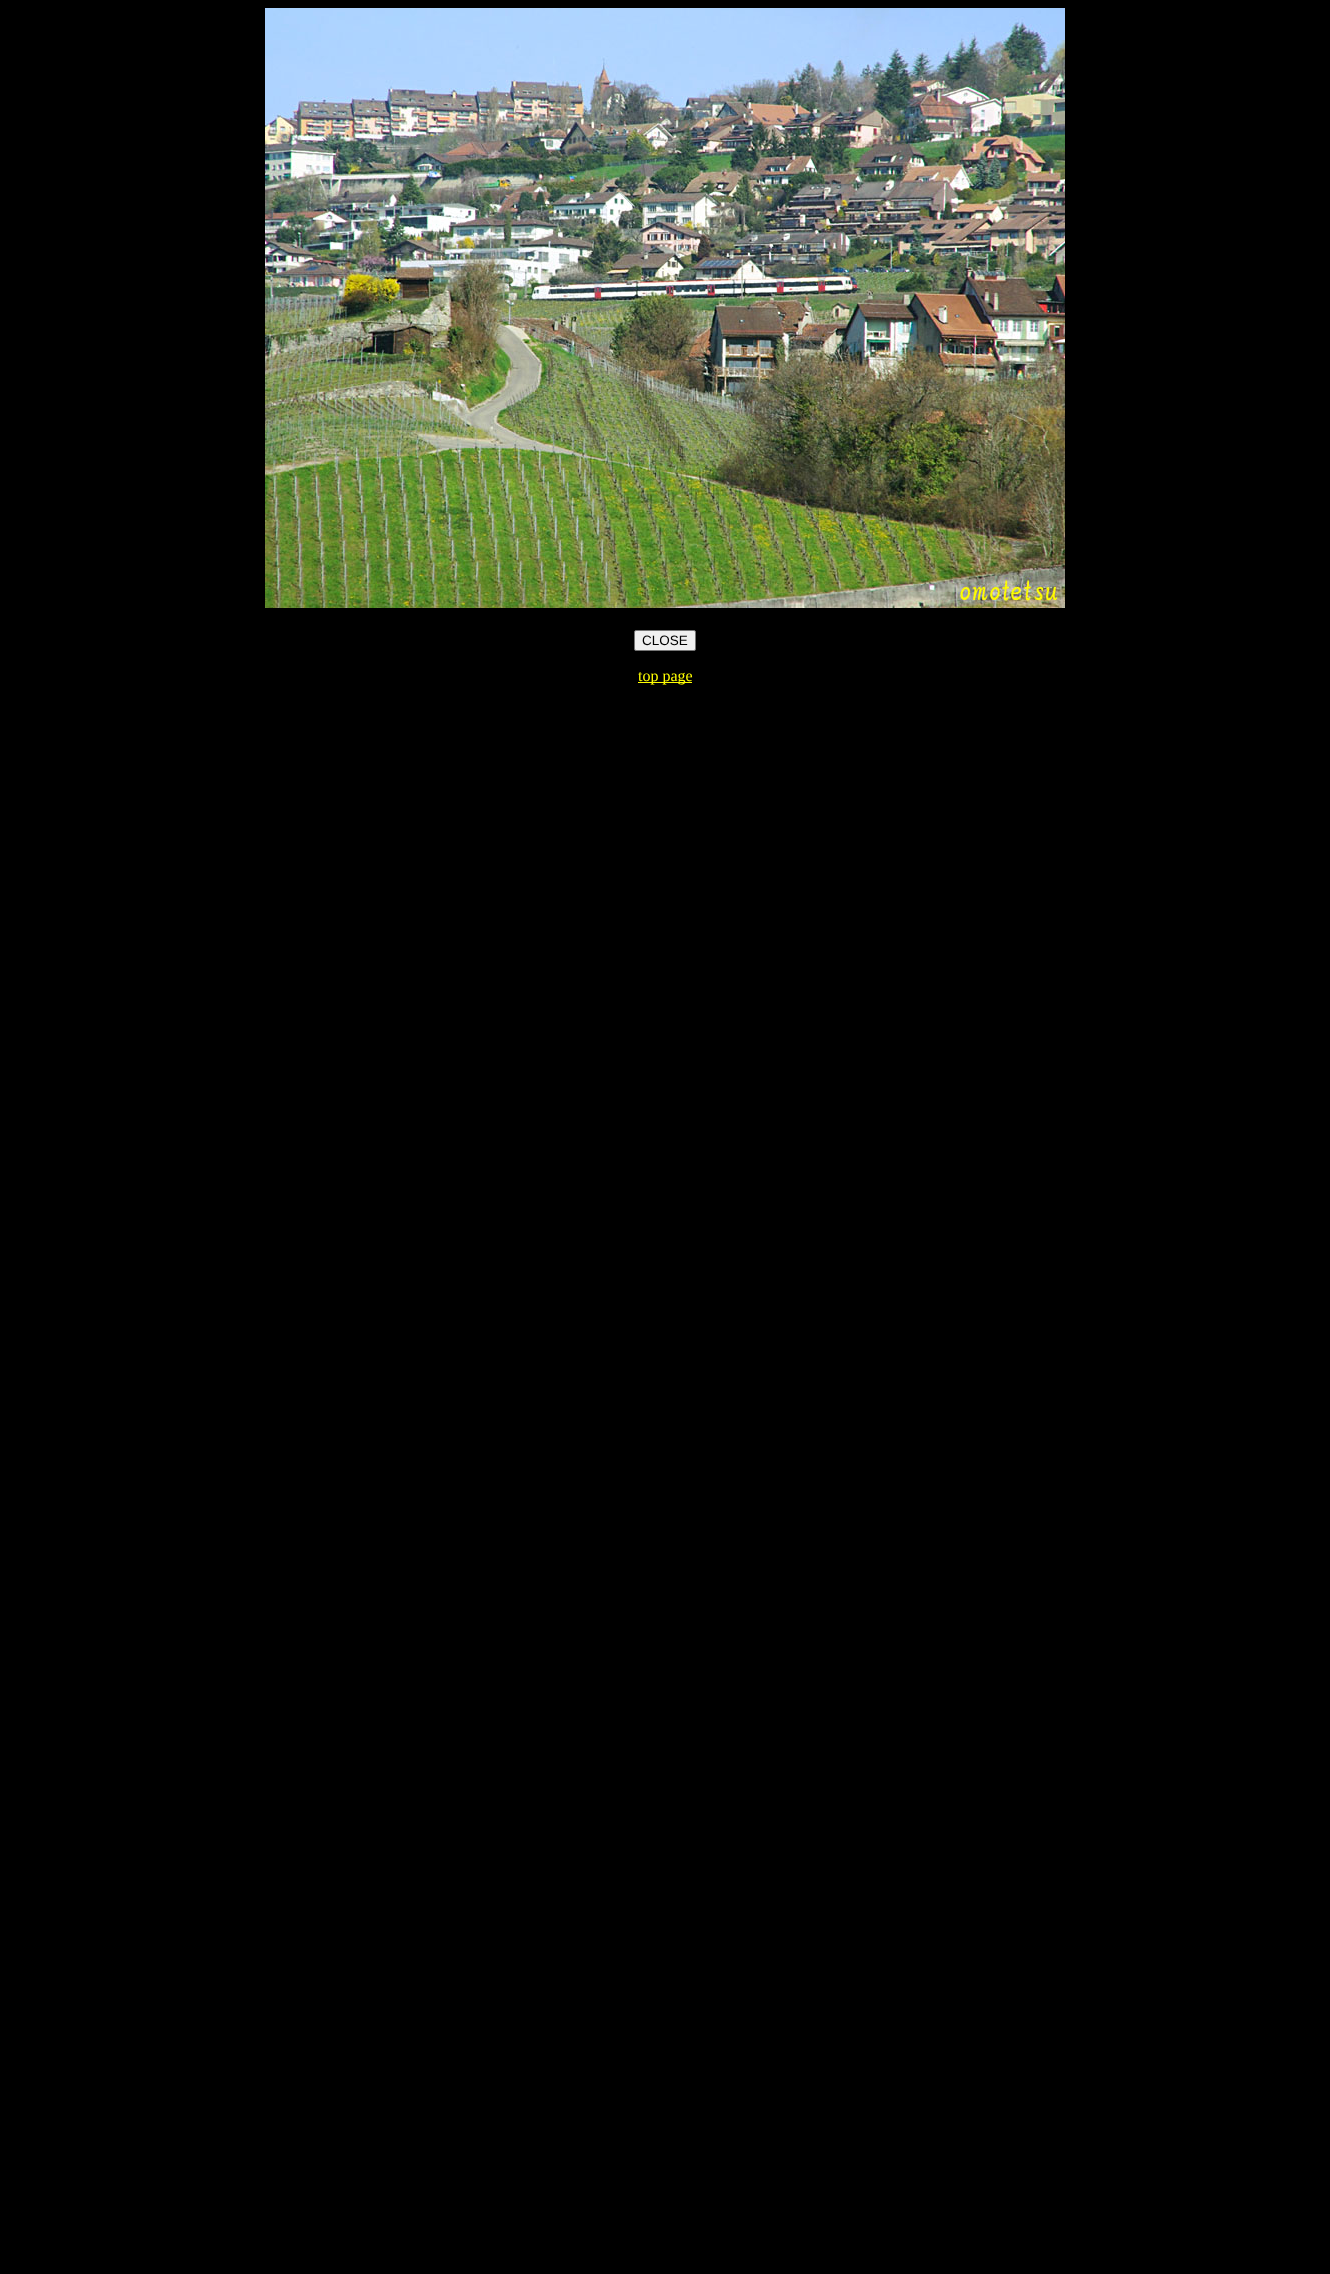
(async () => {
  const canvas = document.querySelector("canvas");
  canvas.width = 1330;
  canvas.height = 2274;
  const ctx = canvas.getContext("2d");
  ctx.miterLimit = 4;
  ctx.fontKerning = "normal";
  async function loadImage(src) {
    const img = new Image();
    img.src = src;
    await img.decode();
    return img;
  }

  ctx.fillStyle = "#000000";
  ctx.fillRect(0, 0, 1330, 2274);
  ctx.drawImage(await loadImage("img/1.png"), 265, 8, 800, 600);
  ctx.fillStyle = "#efefef";
  ctx.beginPath();
  ctx.roundRect(634.5, 630.5, 61, 20, 1.5);
  ctx.fill();
  ctx.strokeStyle = "#767676";
  ctx.stroke();
  ctx.fillStyle = "#ffff00";
  ctx.fillRect(638, 682, 54, 1);
  ctx.font = "13.5px Liberation Sans";
  ctx.fillStyle = "#000000";
  ctx.fillText("CLOSE", 642, 645);
  ctx.font = "16px Liberation Serif";
  ctx.fillStyle = "#ffff00";
  ctx.fillText("top page", 638, 681);
})();
